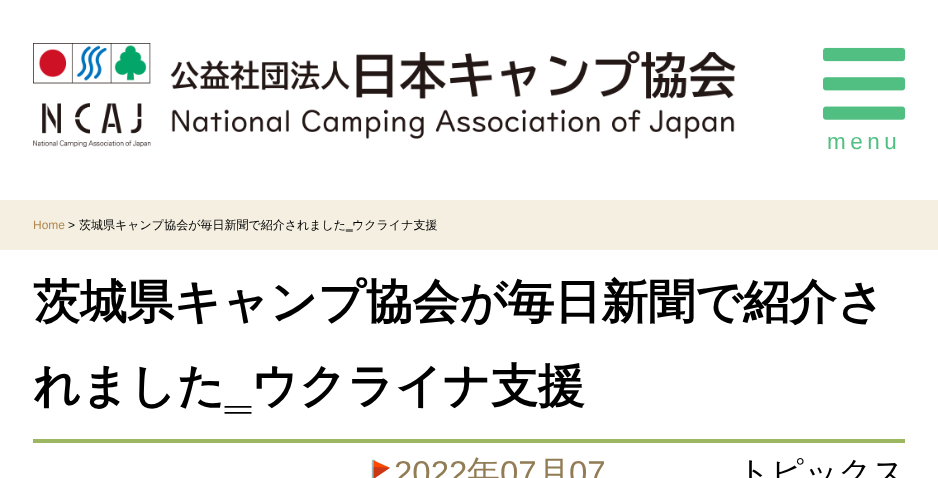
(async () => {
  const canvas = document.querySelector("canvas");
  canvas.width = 938;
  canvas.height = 478;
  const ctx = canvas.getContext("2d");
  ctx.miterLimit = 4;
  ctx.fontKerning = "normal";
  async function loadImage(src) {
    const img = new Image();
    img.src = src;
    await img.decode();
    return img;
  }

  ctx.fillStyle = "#ffffff";
  ctx.fillRect(0, 0, 938, 478);
  ctx.drawImage(await loadImage("img/1.png"), 33, 43, 703, 104);
  ctx.drawImage(await loadImage("img/2.png"), 823, 47, 83, 73);
  ctx.fillStyle = "#f4efe1";
  ctx.fillRect(0, 200, 938, 50);
  ctx.fillStyle = "#9db760";
  ctx.fillRect(33, 439, 872, 4);
  ctx.drawImage(await loadImage("img/3.png"), 371, 459, 19, 19);
  ctx.letterSpacing = "4.5px";
  ctx.font = "22.5px Liberation Sans";
  ctx.fillStyle = "#51bf82";
  ctx.fillText("menu", 827, 149);
  ctx.letterSpacing = "0px";
  ctx.font = "12px Liberation Sans";
  ctx.fillStyle = "#b28850";
  ctx.fillText("Home", 33, 229);
  ctx.fillStyle = "#000000";
  ctx.fillText(">", 68, 229);
  ctx.font = "500 12px WenQuanYi Zen Hei";
  ctx.fillText("茨城県キャンプ協会が毎日新聞で紹介されました", 79, 229);
  ctx.fillText("ウクライナ支援", 352, 229);
  ctx.font = "12px Liberation Sans";
  ctx.fillText("‗", 346, 229);
  ctx.font = "bold 46.9px WenQuanYi Zen Hei";
  ctx.fillText("茨城県キャンプ協会が毎日新聞で紹介さ", 33, 318);
  ctx.fillText("れました", 33, 402);
  ctx.font = "bold 46.9px Liberation Sans";
  ctx.fillText("‗", 225, 402);
  ctx.font = "bold 46.9px WenQuanYi Zen Hei";
  ctx.fillText("ウクライナ支援", 251, 402);
  ctx.font = "33px Liberation Sans";
  ctx.fillStyle = "#917c55";
  ctx.fillText("2022", 394, 484);
  ctx.font = "500 33px WenQuanYi Zen Hei";
  ctx.fillText("年", 467, 484);
  ctx.font = "33px Liberation Sans";
  ctx.fillText("07", 500, 484);
  ctx.font = "500 33px WenQuanYi Zen Hei";
  ctx.fillText("月", 537, 484);
  ctx.font = "33px Liberation Sans";
  ctx.fillText("07", 569, 484);
  ctx.font = "500 33px WenQuanYi Zen Hei";
  ctx.fillStyle = "#000000";
  ctx.fillText("トピックス", 737, 484);
})();
